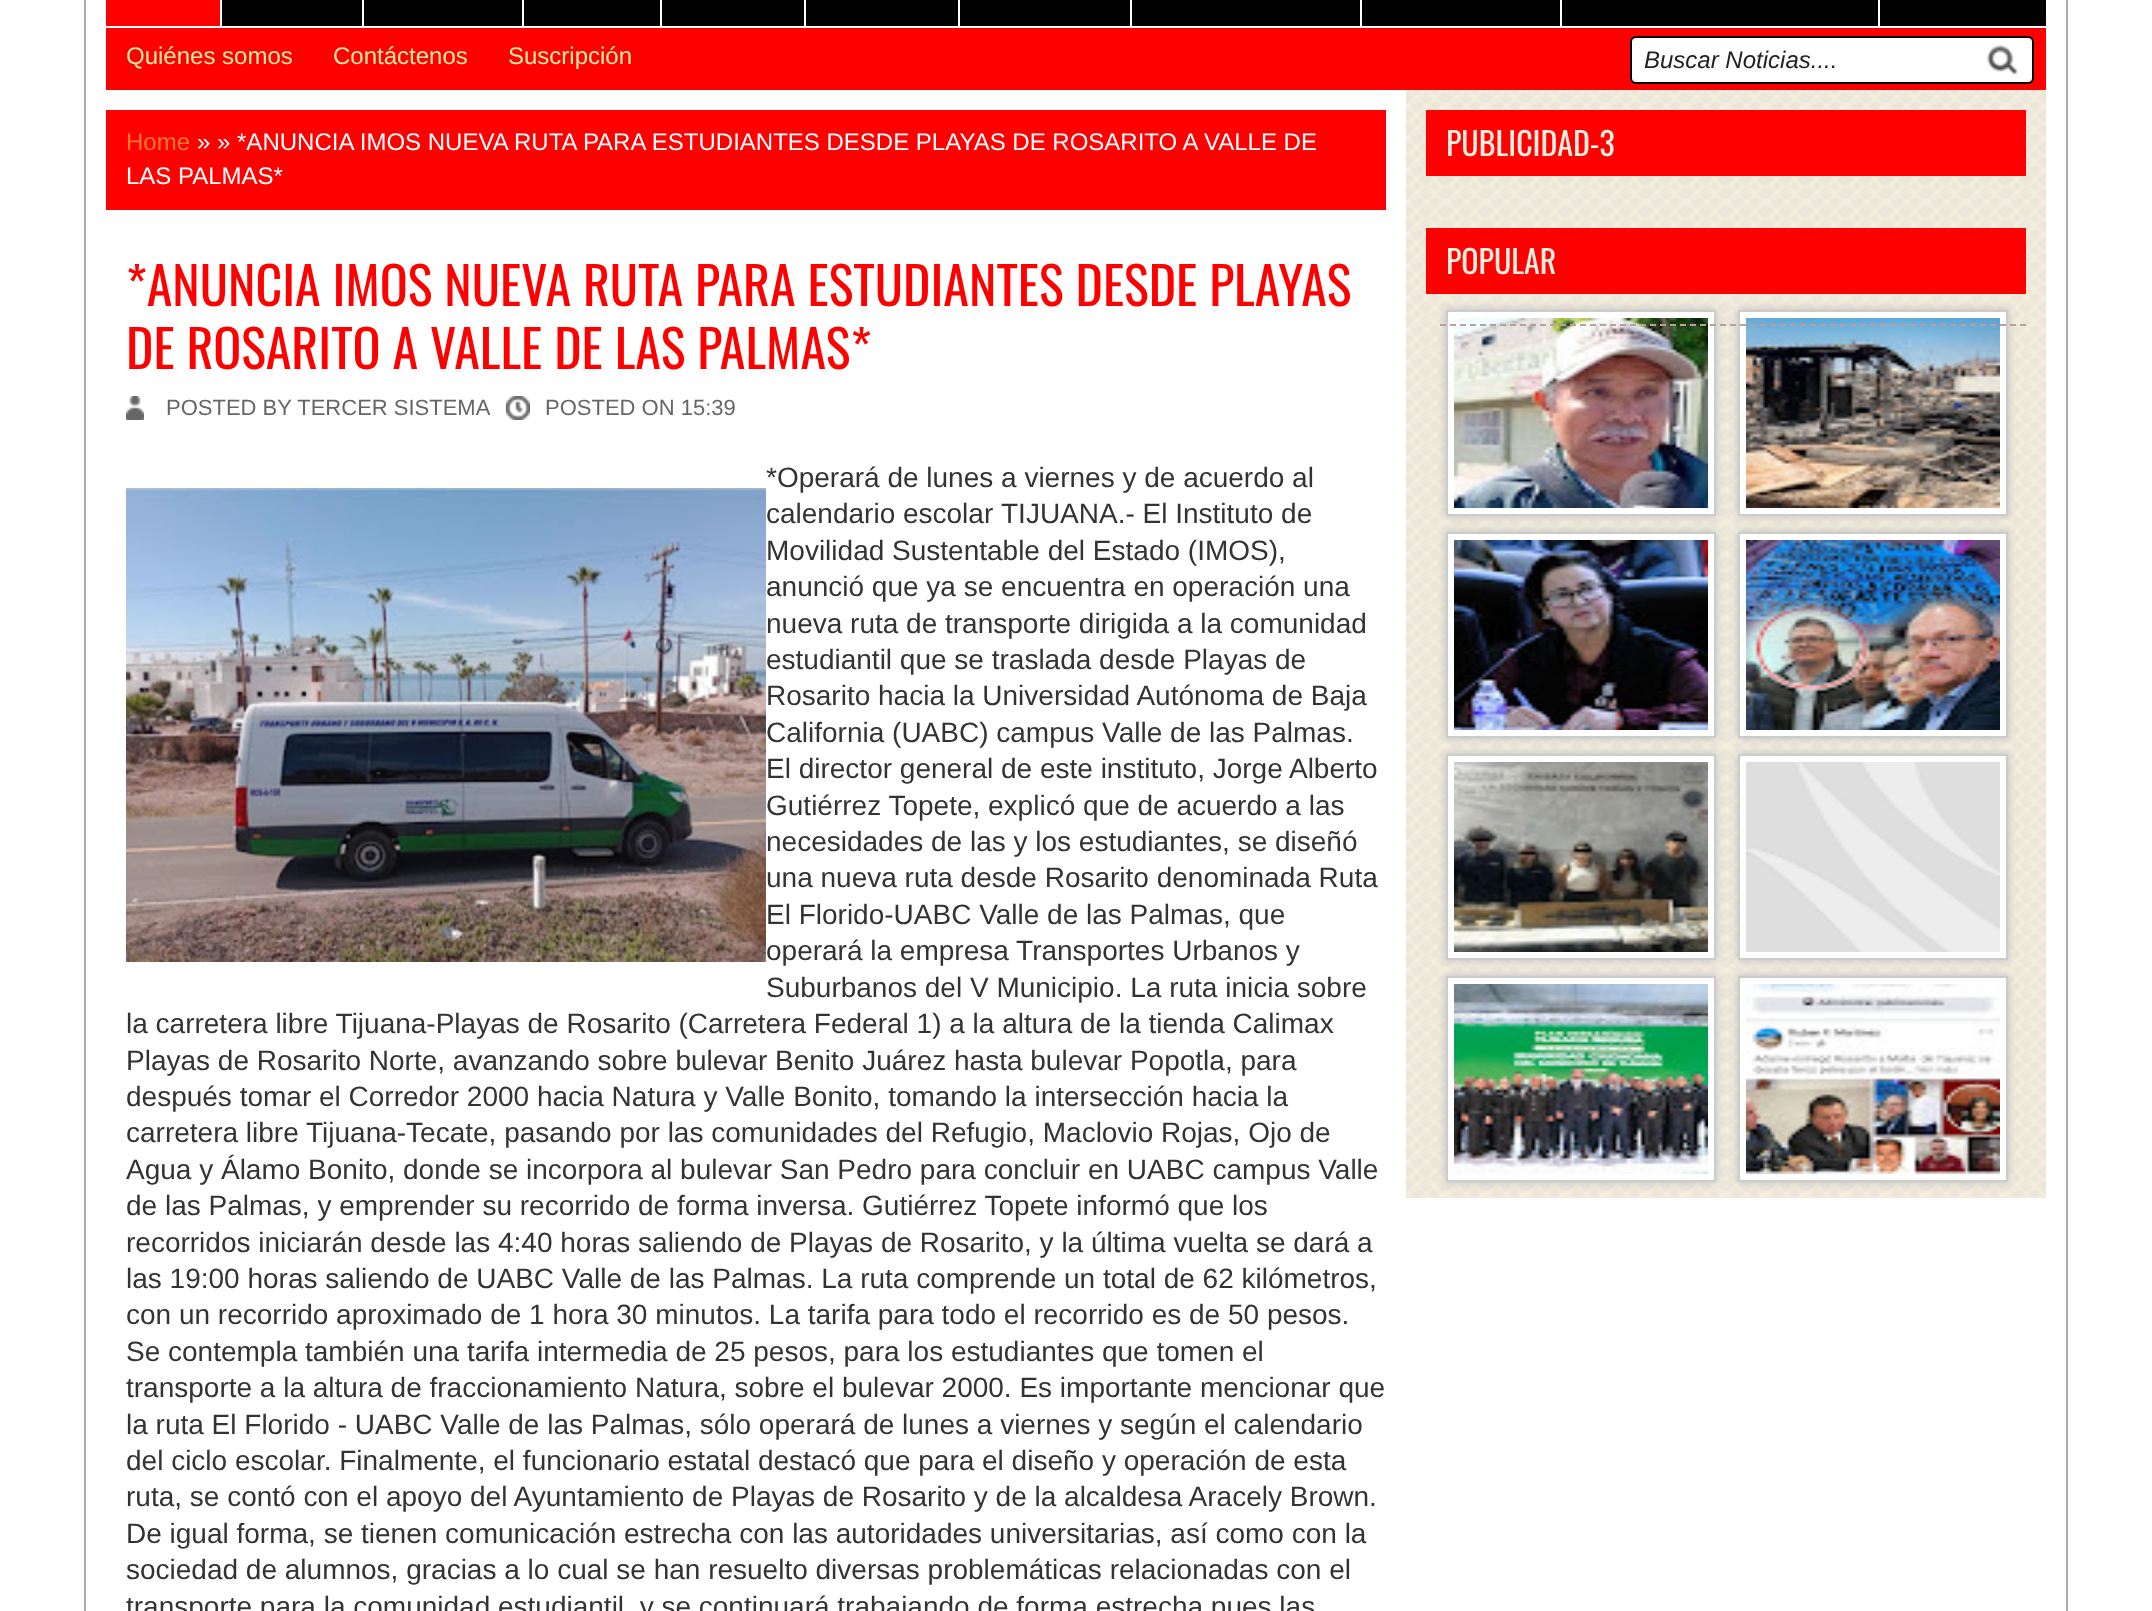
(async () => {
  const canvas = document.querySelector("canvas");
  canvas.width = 2152;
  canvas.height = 1611;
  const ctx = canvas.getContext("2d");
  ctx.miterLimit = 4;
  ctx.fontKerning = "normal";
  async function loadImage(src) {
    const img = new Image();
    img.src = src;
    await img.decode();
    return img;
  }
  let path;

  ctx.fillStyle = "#ffffff";
  ctx.fillRect(0, 0, 2152, 1611);
  ctx.strokeStyle = "#aaaaaa";
  ctx.lineWidth = 2;
  ctx.strokeRect(85, -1, 1982, 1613);
  for (const [x, y, w, h, color] of [
    [222, 0, 1824, 26, "#000100"],
    [106, 0, 114, 26, "#ff0000"],
    [362, 0, 2, 26, "#ffffff"],
    [522, 0, 2, 26, "#ffffff"],
    [660, 0, 2, 26, "#ffffff"],
    [804, 0, 2, 26, "#ffffff"],
    [958, 0, 2, 26, "#ffffff"],
    [1130, 0, 2, 26, "#ffffff"],
    [1360, 0, 2, 26, "#ffffff"],
    [1560, 0, 2, 26, "#ffffff"],
    [1878, 0, 2, 26, "#ffffff"],
    [106, 28, 1940, 62, "#ff0000"],
  ]) {
    ctx.fillStyle = color;
    ctx.fillRect(x, y, w, h);
  }
  ctx.fillStyle = "#ffffff";
  ctx.beginPath();
  ctx.roundRect(1631, 37, 402, 46, 5);
  ctx.fill();
  ctx.strokeStyle = "#000000";
  ctx.stroke();
  ctx.drawImage(await loadImage("img/1.png"), 1987, 45, 31, 30);
  ctx.fillStyle = "#ff0000";
  ctx.fillRect(106, 110, 1280, 100);
  ctx.drawImage(await loadImage("img/2.png"), 126, 396, 18, 24);
  ctx.drawImage(await loadImage("img/3.png"), 506, 396, 24, 24);
  ctx.drawImage(await loadImage("img/4.png"), 126, 488, 640, 474);
  ctx.drawImage(await loadImage("img/5.png"), 1406, 90, 640, 1108);
  ctx.fillRect(1426, 110, 600, 66);
  ctx.fillRect(1426, 228, 600, 66);
  ctx.fillStyle = "#bbbbbb";
  ctx.filter = "blur(4px)";
  ctx.beginPath();
  ctx.rect(1446, 310, 270, 206);
  ctx.fill();
  ctx.filter = "none";
  ctx.fillStyle = "#ffffff";
  ctx.beginPath();
  ctx.rect(1447, 311, 268, 204);
  ctx.fill();
  ctx.strokeStyle = "#cccccc";
  ctx.stroke();
  ctx.drawImage(await loadImage("img/6.png"), 1454, 318, 254, 190);
  ctx.fillStyle = "#bbbbbb";
  ctx.filter = "blur(4px)";
  ctx.beginPath();
  ctx.rect(1738, 310, 270, 206);
  ctx.fill();
  ctx.filter = "none";
  ctx.fillStyle = "#ffffff";
  ctx.beginPath();
  ctx.rect(1739, 311, 268, 204);
  ctx.fill();
  ctx.stroke();
  ctx.drawImage(await loadImage("img/7.png"), 1746, 318, 254, 190);
  path = new Path2D("M1440 325H2026");
  ctx.strokeStyle = "#b99f9f";
  ctx.setLineDash([6, 4]);
  ctx.stroke(path);
  ctx.fillStyle = "#bbbbbb";
  ctx.filter = "blur(4px)";
  ctx.beginPath();
  ctx.rect(1446, 532, 270, 206);
  ctx.fill();
  ctx.filter = "none";
  ctx.fillStyle = "#ffffff";
  ctx.beginPath();
  ctx.rect(1447, 533, 268, 204);
  ctx.fill();
  ctx.strokeStyle = "#cccccc";
  ctx.setLineDash([]);
  ctx.stroke();
  ctx.drawImage(await loadImage("img/8.png"), 1454, 540, 254, 190);
  ctx.fillStyle = "#bbbbbb";
  ctx.filter = "blur(4px)";
  ctx.beginPath();
  ctx.rect(1738, 532, 270, 206);
  ctx.fill();
  ctx.filter = "none";
  ctx.fillStyle = "#ffffff";
  ctx.beginPath();
  ctx.rect(1739, 533, 268, 204);
  ctx.fill();
  ctx.stroke();
  ctx.drawImage(await loadImage("img/9.png"), 1746, 540, 254, 190);
  ctx.fillStyle = "#bbbbbb";
  ctx.filter = "blur(4px)";
  ctx.beginPath();
  ctx.rect(1446, 754, 270, 206);
  ctx.fill();
  ctx.filter = "none";
  ctx.fillStyle = "#ffffff";
  ctx.beginPath();
  ctx.rect(1447, 755, 268, 204);
  ctx.fill();
  ctx.stroke();
  ctx.drawImage(await loadImage("img/10.png"), 1454, 762, 254, 190);
  ctx.fillStyle = "#bbbbbb";
  ctx.filter = "blur(4px)";
  ctx.beginPath();
  ctx.rect(1738, 754, 270, 206);
  ctx.fill();
  ctx.filter = "none";
  ctx.fillStyle = "#ffffff";
  ctx.beginPath();
  ctx.rect(1739, 755, 268, 204);
  ctx.fill();
  ctx.stroke();
  ctx.drawImage(await loadImage("img/11.png"), 1746, 762, 254, 190);
  ctx.fillStyle = "#bbbbbb";
  ctx.filter = "blur(4px)";
  ctx.beginPath();
  ctx.rect(1446, 976, 270, 206);
  ctx.fill();
  ctx.filter = "none";
  ctx.fillStyle = "#ffffff";
  ctx.beginPath();
  ctx.rect(1447, 977, 268, 204);
  ctx.fill();
  ctx.stroke();
  ctx.drawImage(await loadImage("img/12.png"), 1454, 984, 254, 190);
  ctx.fillStyle = "#bbbbbb";
  ctx.filter = "blur(4px)";
  ctx.beginPath();
  ctx.rect(1738, 976, 270, 206);
  ctx.fill();
  ctx.filter = "none";
  ctx.fillStyle = "#ffffff";
  ctx.beginPath();
  ctx.rect(1739, 977, 268, 204);
  ctx.fill();
  ctx.stroke();
  ctx.drawImage(await loadImage("img/13.png"), 1746, 984, 254, 190);
  ctx.font = "24px Liberation Sans";
  ctx.fillStyle = "#f4eaa6";
  for (const [text, x, y] of [
    ["Quiénes somos", 126, 64],
    ["Contáctenos", 333, 64],
    ["Suscripción", 508, 64],
  ]) {
    ctx.fillText(text, x, y);
  }
  ctx.font = "italic 24px Liberation Sans";
  ctx.fillStyle = "#222222";
  ctx.fillText("Buscar Noticias....", 1644, 68);
  ctx.font = "24px Liberation Sans";
  ctx.fillStyle = "#fa7829";
  ctx.fillText("Home", 126, 150);
  ctx.fillStyle = "#ffffff";
  ctx.fillText("» » *ANUNCIA IMOS NUEVA RUTA PARA ESTUDIANTES DESDE PLAYAS DE ROSARITO A VALLE DE", 197, 150);
  ctx.fillText("LAS PALMAS*", 126, 184);
  ctx.font = "52px Oswald";
  ctx.fillStyle = "#ff0000";
  ctx.fillText("*ANUNCIA IMOS NUEVA RUTA PARA ESTUDIANTES DESDE PLAYAS", 126, 306);
  ctx.fillText("DE ROSARITO A VALLE DE LAS PALMAS*", 126, 369);
  ctx.font = "22px Liberation Sans";
  ctx.fillStyle = "#666666";
  ctx.fillText("POSTED BY TERCER SISTEMA", 166, 415);
  ctx.fillText("POSTED ON 15:39", 545, 415);
  ctx.font = "28px Liberation Sans";
  ctx.fillStyle = "#333333";
  for (const [text, x, y] of [
    ["*Operará de lunes a viernes y de acuerdo al", 766, 487],
    ["calendario escolar", 766, 523],
    ["TIJUANA.- El Instituto de", 1001, 523],
    ["Movilidad Sustentable del Estado (IMOS),", 766, 560],
    ["anunció que ya se encuentra en operación una", 766, 596],
    ["nueva ruta de transporte dirigida a la comunidad", 766, 633],
    ["estudiantil que se traslada desde Playas de", 766, 669],
    ["Rosarito hacia la Universidad Autónoma de Baja", 766, 705],
    ["California (UABC) campus Valle de las Palmas.", 766, 742],
    ["El director general de este instituto, Jorge Alberto", 766, 778],
    ["Gutiérrez Topete, explicó que de acuerdo a las", 766, 815],
    ["necesidades de las y los estudiantes, se diseñó", 766, 851],
    ["una nueva ruta desde Rosarito denominada Ruta", 766, 887],
    ["El Florido-UABC Valle de las Palmas, que", 766, 924],
    ["operará la empresa Transportes Urbanos y", 766, 960],
    ["Suburbanos del V Municipio. La ruta inicia sobre", 766, 997],
    ["la carretera libre Tijuana-Playas de Rosarito (Carretera Federal 1) a la altura de la tienda Calimax", 126, 1033],
    ["Playas de Rosarito Norte, avanzando sobre bulevar Benito Juárez hasta bulevar Popotla, para", 126, 1070],
    ["después tomar el Corredor 2000 hacia Natura y Valle Bonito, tomando la intersección hacia la", 126, 1106],
    ["carretera libre Tijuana-Tecate, pasando por las comunidades del Refugio, Maclovio Rojas, Ojo de", 126, 1142],
    ["Agua y Álamo Bonito, donde se incorpora al bulevar San Pedro para concluir en UABC campus Valle", 126, 1179],
    ["de las Palmas, y emprender su recorrido de forma inversa. Gutiérrez Topete informó que los", 126, 1215],
    ["recorridos iniciarán desde las 4:40 horas saliendo de Playas de Rosarito, y la última vuelta se dará a", 126, 1252],
    ["las 19:00 horas saliendo de UABC Valle de las Palmas. La ruta comprende un total de 62 kilómetros,", 126, 1288],
    ["con un recorrido aproximado de 1 hora 30 minutos. La tarifa para todo el recorrido es de 50 pesos.", 126, 1324],
    ["Se contempla también una tarifa intermedia de 25 pesos, para los estudiantes que tomen el", 126, 1361],
    ["transporte a la altura de fraccionamiento Natura, sobre el bulevar 2000. Es importante mencionar que", 126, 1397],
    ["la ruta El Florido - UABC Valle de las Palmas, sólo operará de lunes a viernes y según el calendario", 126, 1434],
    ["del ciclo escolar. Finalmente, el funcionario estatal destacó que para el diseño y operación de esta", 126, 1470],
    ["ruta, se contó con el apoyo del Ayuntamiento de Playas de Rosarito y de la alcaldesa Aracely Brown.", 126, 1506],
    ["De igual forma, se tienen comunicación estrecha con las autoridades universitarias, así como con la", 126, 1543],
    ["sociedad de alumnos, gracias a lo cual se han resuelto diversas problemáticas relacionadas con el", 126, 1579],
    ["transporte para la comunidad estudiantil, y se continuará trabajando de forma estrecha pues las", 126, 1616],
  ]) {
    ctx.fillText(text, x, y);
  }
  ctx.font = "32px Oswald";
  ctx.fillStyle = "#f5efe1";
  ctx.fillText("PUBLICIDAD-3", 1446, 156);
  ctx.fillText("POPULAR", 1446, 274);
})();
